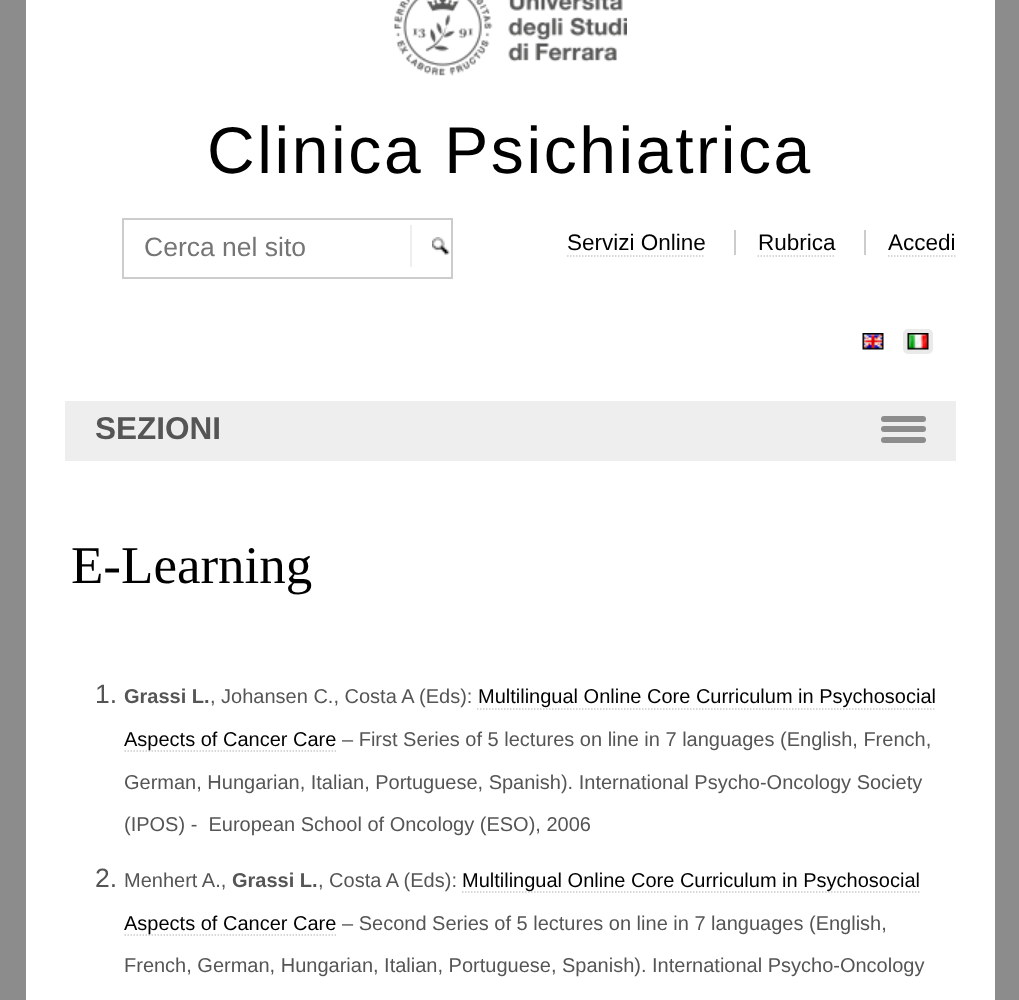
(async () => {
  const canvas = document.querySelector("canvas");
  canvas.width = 1019;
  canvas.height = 1000;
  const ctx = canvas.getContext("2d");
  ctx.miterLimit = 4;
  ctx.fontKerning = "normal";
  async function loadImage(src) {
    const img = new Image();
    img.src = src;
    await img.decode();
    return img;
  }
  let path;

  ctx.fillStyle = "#8c8c8c";
  ctx.fillRect(0, 0, 1019, 1000);
  ctx.fillStyle = "#ffffff";
  ctx.fillRect(26, 0, 969, 1000);
  ctx.drawImage(await loadImage("img/1.png"), 394, 0, 233, 76);
  ctx.strokeStyle = "#cccccc";
  ctx.lineWidth = 2;
  ctx.strokeRect(123, 219, 329, 59);
  ctx.drawImage(await loadImage("img/2.png"), 432, 237, 18, 18);
  ctx.fillStyle = "#eeeeee";
  ctx.fillRect(410, 225, 2, 42);
  path = new Path2D("M567 256H705");
  ctx.lineWidth = 1.5;
  ctx.setLineDash([1.5, 1.5]);
  ctx.stroke(path);
  ctx.fillStyle = "#cccccc";
  ctx.fillRect(734, 230, 2, 25);
  path = new Path2D("M757.5 256H835.5");
  ctx.stroke(path);
  ctx.fillRect(864, 230, 2, 25);
  path = new Path2D("M888 256H955.5");
  ctx.stroke(path);
  ctx.drawImage(await loadImage("img/3.png"), 862, 333, 22, 17);
  ctx.fillStyle = "#eaeaea";
  ctx.beginPath();
  ctx.roundRect(903, 329, 30, 25, 5);
  ctx.fill();
  ctx.drawImage(await loadImage("img/4.png"), 907, 333, 22, 17);
  ctx.fillStyle = "#eeeeee";
  ctx.fillRect(65, 401, 891, 60);
  ctx.fillStyle = "#8c8c8c";
  ctx.beginPath();
  ctx.roundRect(881, 416, 45, 6, 3);
  ctx.fill();
  ctx.beginPath();
  ctx.roundRect(881, 426, 45, 6, 3);
  ctx.fill();
  ctx.beginPath();
  ctx.roundRect(881, 437, 45, 6, 3);
  ctx.fill();
  path = new Path2D("M477 709H936");
  ctx.stroke(path);
  path = new Path2D("M124.5 751H336");
  ctx.stroke(path);
  path = new Path2D("M462 892H919.5");
  ctx.stroke(path);
  path = new Path2D("M124.5 935H336");
  ctx.stroke(path);
  ctx.letterSpacing = "2.6px";
  ctx.font = "66px Liberation Sans";
  ctx.fillStyle = "#000000";
  ctx.fillText("Clinica Psichiatrica", 207, 173);
  ctx.letterSpacing = "0px";
  ctx.font = "26.5px Liberation Sans";
  ctx.fillStyle = "#757575";
  ctx.fillText("Cerca nel sito", 144, 256);
  ctx.font = "22.5px Liberation Sans";
  ctx.fillStyle = "#000000";
  for (const [text, x, y] of [
    ["Servizi Online", 567, 250],
    ["Rubrica", 758, 250],
    ["Accedi", 888, 250],
  ]) {
    ctx.fillText(text, x, y);
  }
  ctx.font = "bold 31.5px Liberation Sans";
  ctx.fillStyle = "#555555";
  ctx.fillText("SEZIONI", 95, 439);
  ctx.font = "53px Liberation Serif";
  ctx.fillStyle = "#000000";
  ctx.fillText("E-Learning", 71, 583);
  ctx.font = "26.5px Liberation Sans";
  ctx.fillStyle = "#555555";
  ctx.fillText("1.", 95, 703);
  ctx.font = "bold 20px Liberation Sans";
  ctx.fillText("Grassi L.", 124, 703);
  ctx.font = "20px Liberation Sans";
  ctx.fillText(", Johansen C., Costa A (Eds):", 210, 703);
  ctx.fillStyle = "#000000";
  ctx.fillText("Multilingual Online Core Curriculum in Psychosocial", 478, 703);
  ctx.fillText("Aspects of Cancer Care", 124, 746);
  ctx.fillStyle = "#555555";
  for (const [text, x, y] of [
    ["– First Series of 5 lectures on line in 7 languages (English, French,", 342, 746],
    ["German, Hungarian, Italian, Portuguese, Spanish). International Psycho-Oncology Society", 124, 789],
    ["(IPOS) -  European School of Oncology (ESO), 2006", 124, 831],
  ]) {
    ctx.fillText(text, x, y);
  }
  ctx.font = "26.5px Liberation Sans";
  ctx.fillText("2.", 95, 887);
  ctx.font = "20px Liberation Sans";
  ctx.fillText("Menhert A.,", 124, 887);
  ctx.font = "bold 20px Liberation Sans";
  ctx.fillText("Grassi L.", 232, 887);
  ctx.font = "20px Liberation Sans";
  ctx.fillText(", Costa A (Eds):", 318, 887);
  ctx.fillStyle = "#000000";
  ctx.fillText("Multilingual Online Core Curriculum in Psychosocial", 462, 887);
  ctx.fillText("Aspects of Cancer Care", 124, 930);
  ctx.fillStyle = "#555555";
  ctx.fillText("– Second Series of 5 lectures on line in 7 languages (English,", 342, 930);
  ctx.fillText("French, German, Hungarian, Italian, Portuguese, Spanish). International Psycho-Oncology", 124, 972);
})();
